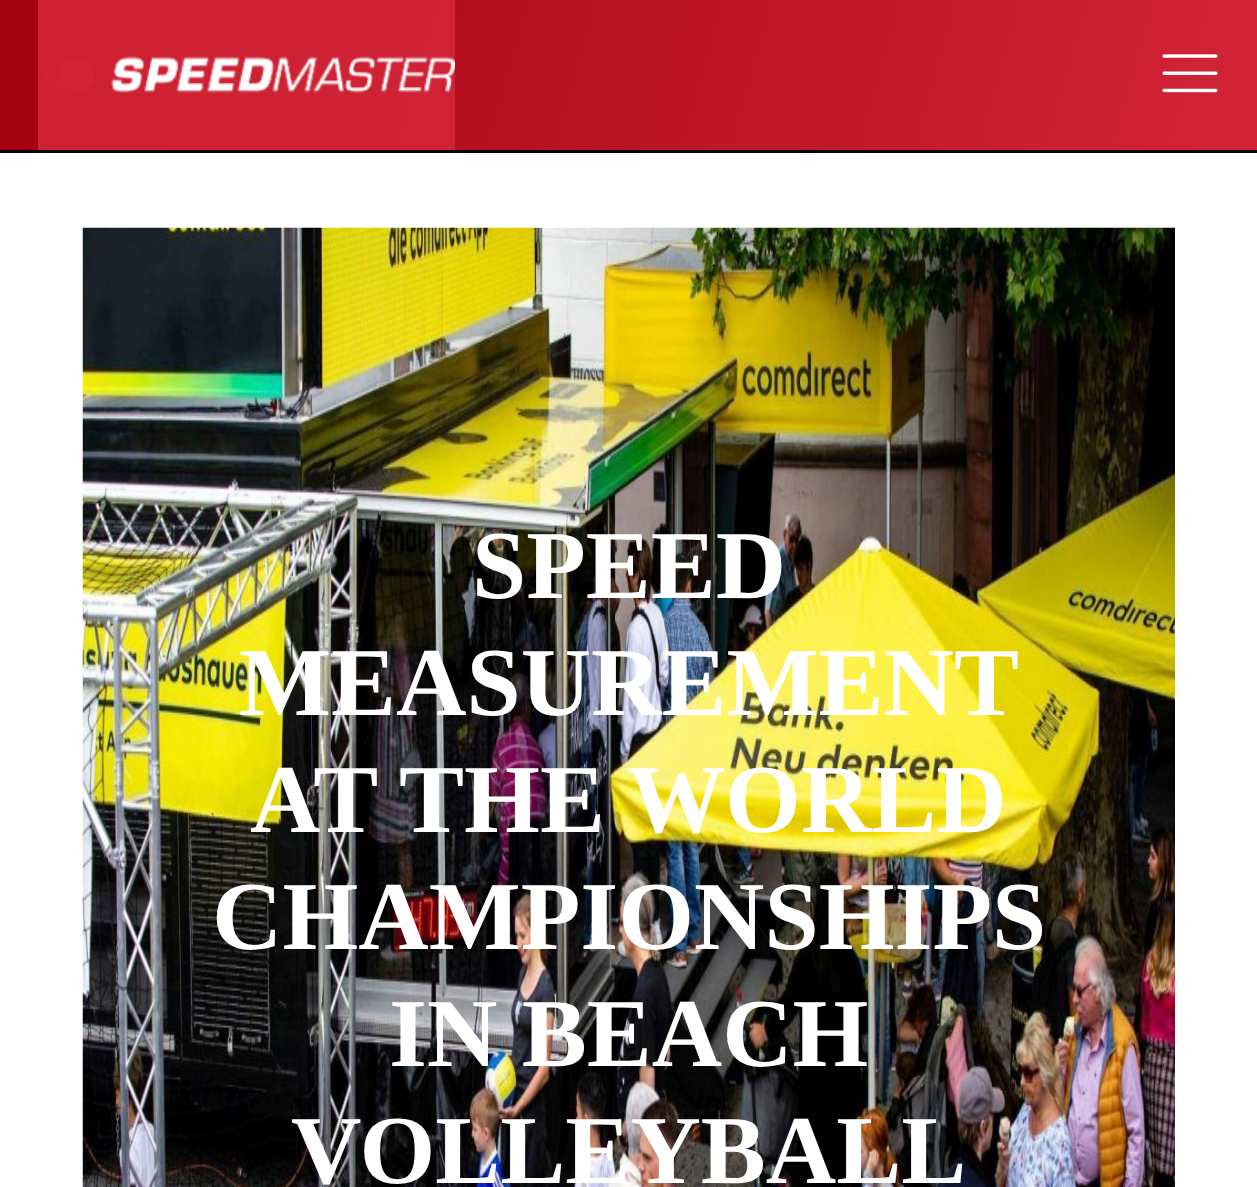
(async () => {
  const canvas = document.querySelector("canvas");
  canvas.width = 1257;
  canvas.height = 1187;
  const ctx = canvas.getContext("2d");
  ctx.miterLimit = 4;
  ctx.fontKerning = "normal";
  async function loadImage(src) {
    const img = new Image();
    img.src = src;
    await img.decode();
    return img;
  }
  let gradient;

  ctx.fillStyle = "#ffffff";
  ctx.fillRect(0, 0, 1257, 1187);
  ctx.fillStyle = "#000119";
  ctx.fillRect(0, 150, 1257, 3);
  gradient = ctx.createLinearGradient(1230, 247, 28, -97);
  gradient.addColorStop(0, "#d22537");
  gradient.addColorStop(1, "#a20011");
  ctx.fillStyle = gradient;
  ctx.fillRect(0, 0, 1257, 150);
  gradient = ctx.createLinearGradient(1230, 247, 28, -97);
  gradient.addColorStop(0, "#d22537");
  gradient.addColorStop(1, "#cd2133");
  ctx.fillStyle = gradient;
  ctx.fillRect(38, 0, 417, 150);
  ctx.drawImage(await loadImage("img/1.png"), 43, 56, 412, 38);
  ctx.drawImage(await loadImage("img/2.png"), 1162, 54, 56, 39);
  ctx.drawImage(await loadImage("img/3.png"), 82, 227, 1093, 960);
  ctx.font = "bold 97.5px Liberation Serif";
  ctx.fillStyle = "#ffffff";
  for (const [text, x, y] of [
    ["SPEED", 472, 598],
    ["MEASUREMENT", 239, 715],
    ["AT THE WORLD", 250, 832],
    ["CHAMPIONSHIPS", 212, 949],
    ["IN BEACH", 389, 1066],
    ["VOLLEYBALL", 291, 1183],
  ]) {
    ctx.fillText(text, x, y);
  }
})();
